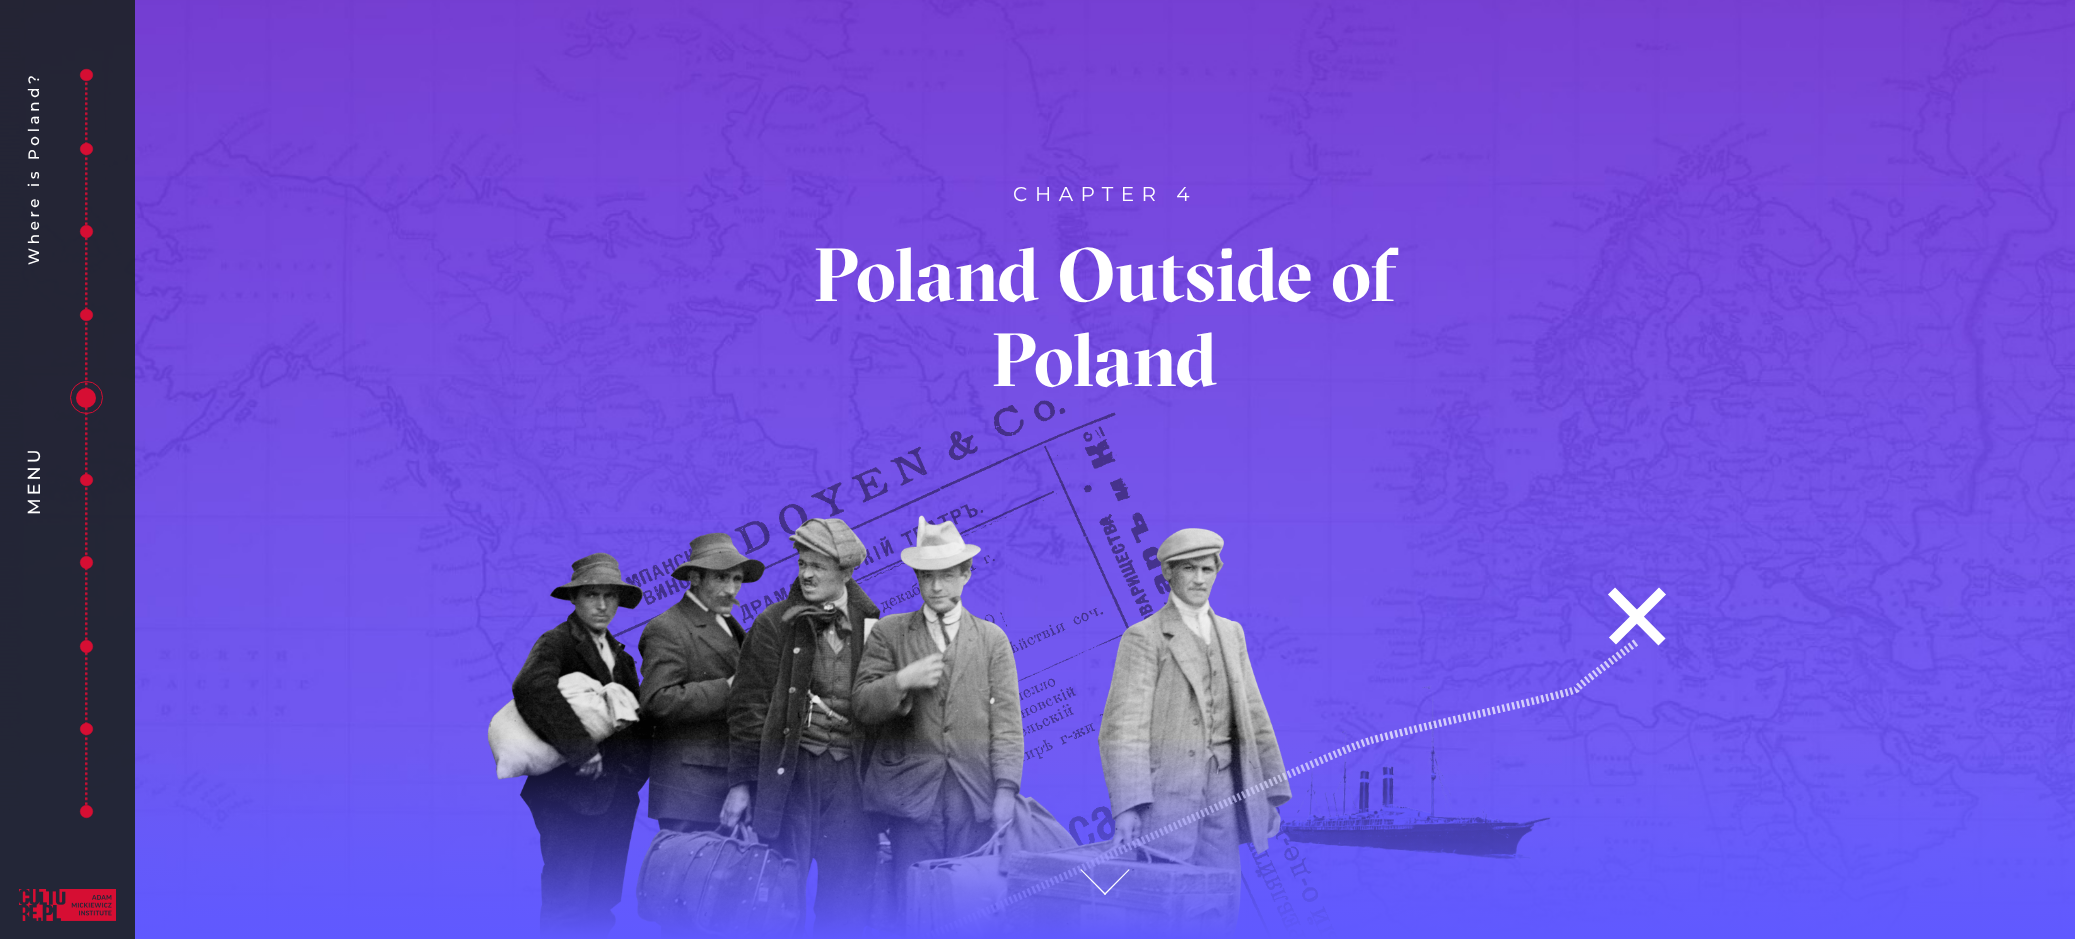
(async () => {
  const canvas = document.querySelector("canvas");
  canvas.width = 2075;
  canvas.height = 939;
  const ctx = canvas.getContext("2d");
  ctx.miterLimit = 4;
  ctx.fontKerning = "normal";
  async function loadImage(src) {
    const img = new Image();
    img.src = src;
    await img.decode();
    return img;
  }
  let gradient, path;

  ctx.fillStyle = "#ffffff";
  ctx.fillRect(0, 0, 2075, 939);
  ctx.drawImage(await loadImage("img/2.png"), 0, 0, 2075, 939);
  ctx.drawImage(await loadImage("img/3.png"), 612, 400, 939, 539);
  ctx.drawImage(await loadImage("img/4.png"), 487, 515, 806, 424);
  path = new Path2D("M738.5 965.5C780 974.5 822.5 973 864.5 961C928 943.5 1324.5 753.5 1370.5 740.5C1416.5 727.5 1574.5 693 1576.5 689C1578 686.5 1598 671 1636.5 642");
  ctx.strokeStyle = "rgba(255, 255, 255, 0.7)";
  ctx.lineWidth = 7.5;
  ctx.setLineDash([2.5, 2.5]);
  ctx.stroke(path);
  gradient = ctx.createLinearGradient(1038, 735, 1038, 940);
  gradient.addColorStop(0, "rgba(96, 89, 255, 0)");
  gradient.addColorStop(1, "#6059ff");
  ctx.fillStyle = gradient;
  ctx.fillRect(0, 739, 2075, 200);
  ctx.fillStyle = "rgba(31, 35, 43, 0.94)";
  ctx.fillRect(0, 0, 135, 939);
  ctx.drawImage(await loadImage("img/1.png"), 85, 80, 3, 726);
  ctx.fillStyle = "#d60e33";
  ctx.beginPath();
  ctx.roundRect(80.25, 69.25, 12.5, 11.5, 5.75);
  ctx.fill();
  ctx.strokeStyle = "#d60e33";
  ctx.lineWidth = 0.5;
  ctx.setLineDash([]);
  ctx.stroke();
  ctx.beginPath();
  ctx.roundRect(80.25, 143.25, 12.5, 11.5, 5.75);
  ctx.fill();
  ctx.stroke();
  ctx.beginPath();
  ctx.arc(86.5, 231.5, 6.25, 0, Math.PI * 2);
  ctx.fill();
  ctx.stroke();
  ctx.beginPath();
  ctx.roundRect(80.25, 309.25, 12.5, 11.5, 5.75);
  ctx.fill();
  ctx.stroke();
  ctx.beginPath();
  ctx.arc(86, 398, 10, 0, Math.PI * 2);
  ctx.fill();
  ctx.beginPath();
  ctx.arc(86.5, 397.5, 16, 0, Math.PI * 2);
  ctx.lineWidth = 1;
  ctx.stroke();
  ctx.beginPath();
  ctx.roundRect(80.25, 474.25, 12.5, 11.5, 5.75);
  ctx.fill();
  ctx.lineWidth = 0.5;
  ctx.stroke();
  ctx.beginPath();
  ctx.arc(86.5, 562.5, 6.25, 0, Math.PI * 2);
  ctx.fill();
  ctx.stroke();
  ctx.beginPath();
  ctx.arc(86.5, 646.5, 6.25, 0, Math.PI * 2);
  ctx.fill();
  ctx.stroke();
  ctx.beginPath();
  ctx.roundRect(80.25, 723.25, 12.5, 11.5, 5.75);
  ctx.fill();
  ctx.stroke();
  ctx.beginPath();
  ctx.arc(86.5, 811.5, 6.25, 0, Math.PI * 2);
  ctx.fill();
  ctx.stroke();
  path = new Path2D("M1615 594.5L1658.5 638.5M1659 594.5L1616 637.5");
  ctx.strokeStyle = "#ffffff";
  ctx.lineWidth = 10;
  ctx.lineCap = "square";
  ctx.stroke(path);
  ctx.fillStyle = "#ffffff";
  path = new Path2D("M1129 869L1129.5 870L1105 895L1104 894Z");
  ctx.fill(path);
  path = new Path2D("M1081 869L1106 894L1105 895L1080.5 870Z");
  ctx.fill(path);
  ctx.drawImage(await loadImage("img/5.png"), 19, 889, 97, 32);
  ctx.letterSpacing = "3.75px";
  ctx.font = "500 15px Montserrat";
  ctx.save();
  ctx.translate(39, 265);
  ctx.rotate(-90 * Math.PI / 180);
  ctx.fillText("Where is Poland?", 0, 0);
  ctx.restore();
  ctx.letterSpacing = "3px";
  ctx.font = "500 17.5px Montserrat";
  ctx.save();
  ctx.translate(40, 515);
  ctx.rotate(-90 * Math.PI / 180);
  ctx.fillText("MENU", 0, 0);
  ctx.restore();
  ctx.letterSpacing = "7.5px";
  ctx.font = "20px Montserrat";
  ctx.fillText("CHAPTER 4", 1013, 201);
  ctx.letterSpacing = "0px";
  ctx.font = "bold 75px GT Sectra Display";
  ctx.fillText("Poland Outside of", 814, 301);
  ctx.fillText("Poland", 992, 386);
})();
